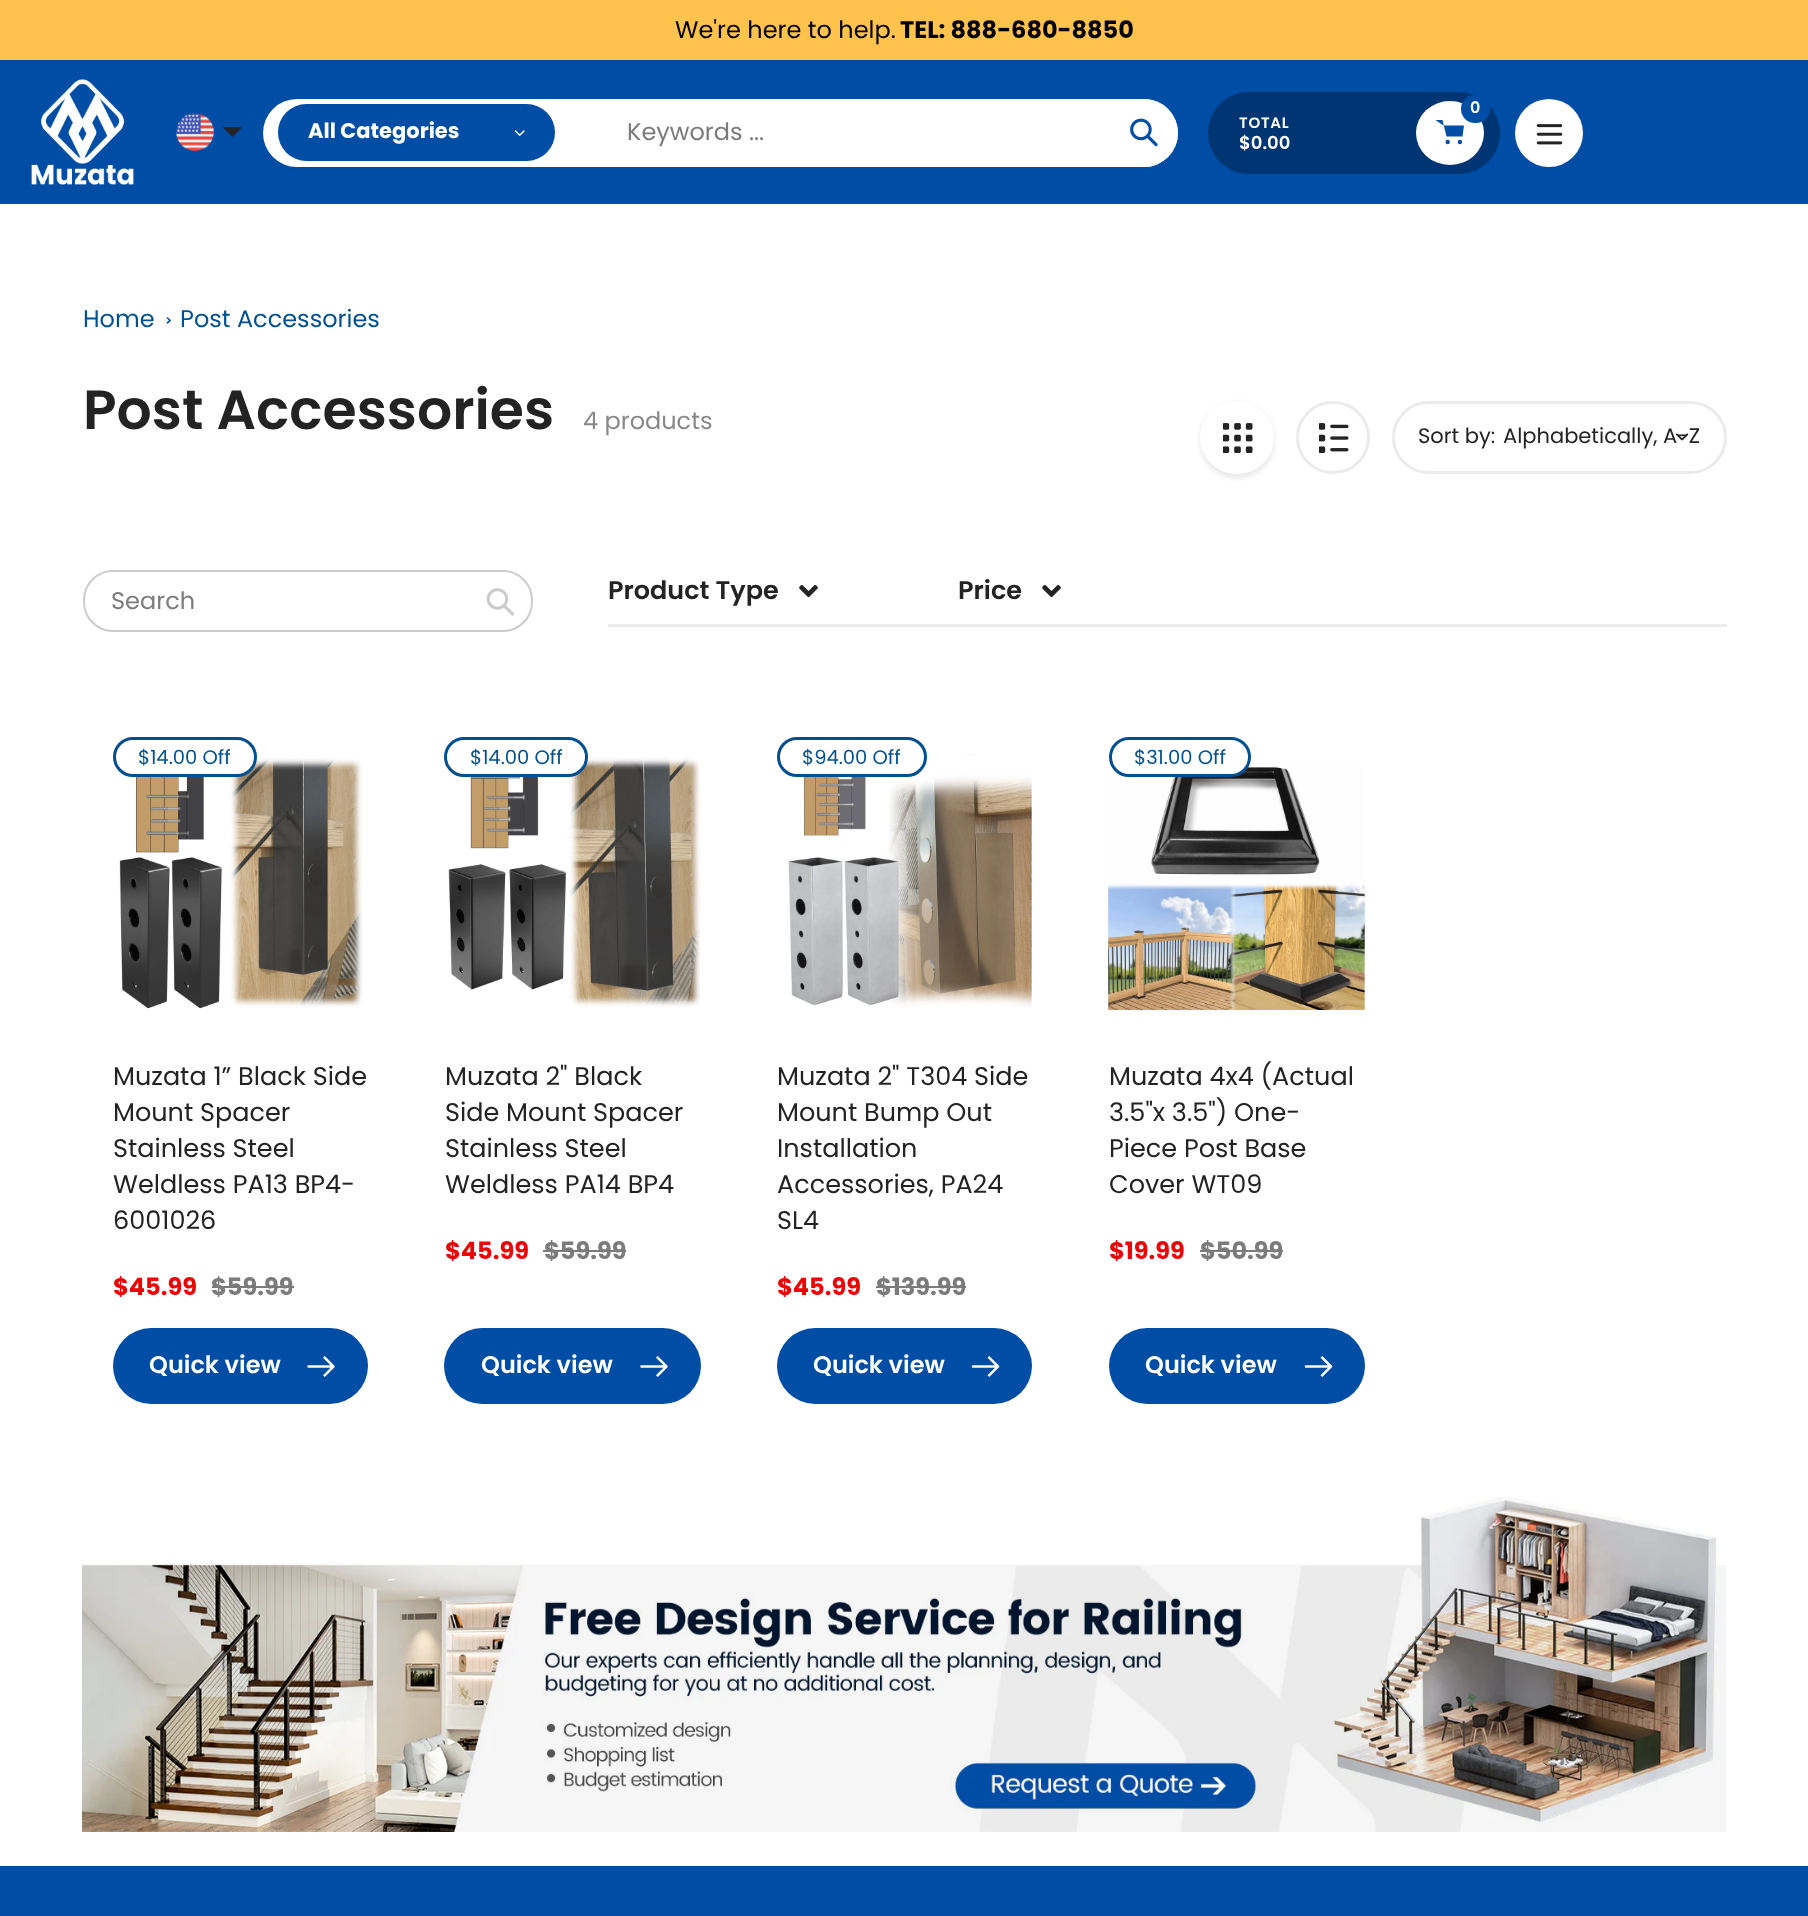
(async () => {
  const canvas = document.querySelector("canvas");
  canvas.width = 1808;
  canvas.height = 1916;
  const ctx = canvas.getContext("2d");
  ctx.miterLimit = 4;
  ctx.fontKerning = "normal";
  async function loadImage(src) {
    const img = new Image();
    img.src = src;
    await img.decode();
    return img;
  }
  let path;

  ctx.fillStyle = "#ffffff";
  ctx.fillRect(0, 0, 1808, 1916);
  ctx.fillStyle = "#ffc24d";
  ctx.fillRect(0, 0, 1808, 60);
  ctx.fillStyle = "#004da6";
  ctx.fillRect(0, 60, 1808, 144);
  ctx.drawImage(await loadImage("img/1.png"), 31, 79, 103, 106);
  ctx.drawImage(await loadImage("img/2.png"), 176, 113, 38, 38);
  ctx.fillStyle = "#232323";
  path = new Path2D("M242.5 127L232.5 137L222.5 127");
  ctx.fill(path);
  ctx.fillStyle = "#ffffff";
  ctx.beginPath();
  ctx.roundRect(263, 99, 915, 68, 34);
  ctx.fill();
  ctx.fillStyle = "#004da6";
  ctx.beginPath();
  ctx.roundRect(278, 104, 277, 57, 28.5);
  ctx.fill();
  ctx.drawImage(await loadImage("img/3.png"), 515, 130, 10, 6);
  ctx.fillStyle = "#ffffff";
  ctx.beginPath();
  ctx.roundRect(585, 99, 593, 68, 34);
  ctx.fill();
  ctx.drawImage(await loadImage("img/4.png"), 1130, 118, 28, 29);
  ctx.fillStyle = "#003573";
  ctx.beginPath();
  ctx.roundRect(1208, 92, 292, 82, 41);
  ctx.fill();
  ctx.fillStyle = "#ffffff";
  ctx.beginPath();
  ctx.ellipse(1450, 133, 34, 32, 0, 0, Math.PI * 2);
  ctx.fill();
  ctx.fillStyle = "#004da6";
  path = new Path2D("M1443.5 125.5H1464L1462.5 136.5H1446.5L1442.5 120H1435.5");
  ctx.fill(path, "evenodd");
  ctx.beginPath();
  ctx.roundRect(1461, 95, 29, 28, 14);
  ctx.fill();
  ctx.beginPath();
  ctx.arc(1447.7, 142, 2.2, 0, Math.PI * 2);
  ctx.fill();
  ctx.beginPath();
  ctx.arc(1459.9, 142, 2.2, 0, Math.PI * 2);
  ctx.fill();
  ctx.fillStyle = "#ffffff";
  ctx.beginPath();
  ctx.arc(1549, 133, 34, 0, Math.PI * 2);
  ctx.fill();
  ctx.drawImage(await loadImage("img/5.png"), 1536, 124, 27, 21);
  ctx.fillStyle = "#005091";
  path = new Path2D("M167.5 317L171 320.5L170 321.5L166.5 318Z");
  ctx.fill(path);
  path = new Path2D("M170 319.5L171 320.5L167.5 324L166.5 322.5Z");
  ctx.fill(path);
  ctx.fillStyle = "#ebebeb";
  ctx.filter = "blur(2px)";
  ctx.beginPath();
  ctx.roundRect(1199, 402, 76, 77, 38);
  ctx.fill();
  ctx.filter = "none";
  ctx.fillStyle = "#ffffff";
  ctx.beginPath();
  ctx.roundRect(1200, 401, 74, 73, 36.5);
  ctx.fill();
  ctx.drawImage(await loadImage("img/6.png"), 1223, 423, 30, 30);
  ctx.beginPath();
  ctx.roundRect(1297.5, 402.5, 71, 70, 35);
  ctx.strokeStyle = "#ebebeb";
  ctx.lineWidth = 3;
  ctx.stroke();
  ctx.drawImage(await loadImage("img/7.png"), 1319, 423, 30, 30);
  ctx.beginPath();
  ctx.roundRect(1393.5, 402.5, 332, 70, 35);
  ctx.stroke();
  ctx.drawImage(await loadImage("img/8.png"), 1676, 433, 13, 8);
  ctx.beginPath();
  ctx.roundRect(84, 571, 448, 60, 29);
  ctx.strokeStyle = "#cccccc";
  ctx.lineWidth = 2;
  ctx.stroke();
  ctx.drawImage(await loadImage("img/9.png"), 486, 588, 28, 28);
  ctx.fillStyle = "#ebebeb";
  ctx.fillRect(608, 624, 1119, 3);
  ctx.drawImage(await loadImage("img/10.png"), 799, 585, 19, 12);
  ctx.drawImage(await loadImage("img/10.png"), 1042, 585, 19, 12);
  ctx.drawImage(await loadImage("img/11.png"), 119, 753, 244, 256);
  ctx.fillStyle = "#ffffff";
  ctx.beginPath();
  ctx.roundRect(114.5, 738.5, 141, 37, 18.5);
  ctx.fill();
  ctx.strokeStyle = "#005091";
  ctx.lineWidth = 3;
  ctx.stroke();
  ctx.fillStyle = "#7b7b7b";
  ctx.fillRect(212, 1286, 82, 2);
  ctx.fillStyle = "#004da6";
  ctx.beginPath();
  ctx.roundRect(113, 1328, 255, 76, 38);
  ctx.fill();
  ctx.drawImage(await loadImage("img/12.png"), 307, 1356, 28, 21);
  ctx.drawImage(await loadImage("img/13.png"), 448, 753, 252, 254);
  ctx.fillStyle = "#ffffff";
  ctx.beginPath();
  ctx.roundRect(445.5, 738.5, 141, 37, 18.5);
  ctx.fill();
  ctx.stroke();
  ctx.fillStyle = "#7b7b7b";
  ctx.fillRect(543, 1250, 83, 2);
  ctx.fillStyle = "#004da6";
  ctx.beginPath();
  ctx.roundRect(444, 1328, 257, 76, 38);
  ctx.fill();
  ctx.drawImage(await loadImage("img/12.png"), 640, 1356, 28, 21);
  ctx.drawImage(await loadImage("img/14.png"), 788, 753, 244, 255);
  ctx.fillStyle = "#ffffff";
  ctx.beginPath();
  ctx.roundRect(778.5, 738.5, 147, 37, 18.5);
  ctx.fill();
  ctx.stroke();
  ctx.fillStyle = "#7b7b7b";
  ctx.fillRect(876, 1286, 90, 2);
  ctx.fillStyle = "#004da6";
  ctx.beginPath();
  ctx.roundRect(777, 1328, 255, 76, 38);
  ctx.fill();
  ctx.drawImage(await loadImage("img/15.png"), 971, 1356, 29, 21);
  ctx.drawImage(await loadImage("img/16.png"), 1108, 766, 257, 244);
  ctx.fillStyle = "#ffffff";
  ctx.beginPath();
  ctx.roundRect(1110.5, 738.5, 139, 37, 18.5);
  ctx.fill();
  ctx.stroke();
  ctx.fillStyle = "#7b7b7b";
  ctx.fillRect(1200, 1250, 83, 2);
  ctx.fillStyle = "#004da6";
  ctx.beginPath();
  ctx.roundRect(1109, 1328, 256, 76, 38);
  ctx.fill();
  ctx.drawImage(await loadImage("img/15.png"), 1304, 1356, 29, 21);
  ctx.drawImage(await loadImage("img/17.png"), 82, 1496, 1644, 336);
  ctx.fillRect(0, 1866, 1808, 50);
  ctx.font = "24px Poppins";
  ctx.fillStyle = "#000000";
  ctx.fillText("We're here to help.", 675, 38);
  ctx.font = "bold 24px Poppins";
  ctx.fillText("TEL: 888-680-8850", 900, 38);
  ctx.font = "bold 21px Poppins";
  ctx.fillStyle = "#ffffff";
  ctx.fillText("All Categories", 308, 138);
  ctx.font = "24px Poppins";
  ctx.fillStyle = "#7b7b7b";
  ctx.fillText("Keywords ...", 627, 140);
  ctx.font = "600 16px Poppins";
  ctx.fillStyle = "#ffffff";
  ctx.fillText("0", 1470, 113);
  ctx.letterSpacing = "0.75px";
  ctx.font = "600 15px Poppins";
  ctx.fillText("TOTAL", 1239, 128);
  ctx.letterSpacing = "0px";
  ctx.font = "600 18px Poppins";
  ctx.fillText("$0.00", 1239, 149);
  ctx.font = "24px Poppins";
  ctx.fillStyle = "#005091";
  ctx.fillText("Home", 83, 327);
  ctx.fillText("Post Accessories", 180, 327);
  ctx.font = "600 55.25px Poppins";
  ctx.fillStyle = "#232323";
  ctx.fillText("Post Accessories", 83, 429);
  ctx.font = "24px Poppins";
  ctx.fillStyle = "#888888";
  ctx.fillText("4 products", 583, 429);
  ctx.font = "21px Poppins";
  ctx.fillStyle = "#232323";
  ctx.fillText("Sort by:", 1418, 443);
  ctx.fillText("Alphabetically, A-Z", 1503, 443);
  ctx.font = "24px Poppins";
  ctx.fillStyle = "#7b7b7b";
  ctx.fillText("Search", 111, 609);
  ctx.font = "600 25.5px Poppins";
  ctx.fillStyle = "#232323";
  ctx.fillText("Product Type", 608, 599);
  ctx.fillText("Price", 958, 599);
  ctx.font = "19.5px Poppins";
  ctx.fillStyle = "#005091";
  ctx.fillText("$14.00 Off", 138, 764);
  ctx.font = "25.5px Poppins";
  ctx.fillStyle = "#232323";
  for (const [text, x, y] of [
    ["Muzata 1” Black Side", 113, 1085],
    ["Mount Spacer", 113, 1121],
    ["Stainless Steel", 113, 1157],
    ["Weldless PA13 BP4-", 113, 1193],
    ["6001026", 113, 1229],
  ]) {
    ctx.fillText(text, x, y);
  }
  ctx.font = "bold 24px Poppins";
  ctx.fillStyle = "#ea0606";
  ctx.fillText("$45.99", 113, 1295);
  ctx.fillStyle = "#7b7b7b";
  ctx.fillText("$59.99", 211, 1295);
  ctx.font = "600 24px Poppins";
  ctx.fillStyle = "#ffffff";
  ctx.fillText("Quick view", 149, 1373);
  ctx.font = "19.5px Poppins";
  ctx.fillStyle = "#005091";
  ctx.fillText("$14.00 Off", 470, 764);
  ctx.font = "25.5px Poppins";
  ctx.fillStyle = "#232323";
  for (const [text, x, y] of [
    ["Muzata 2\" Black", 445, 1085],
    ["Side Mount Spacer", 445, 1121],
    ["Stainless Steel", 445, 1157],
    ["Weldless PA14 BP4", 445, 1193],
  ]) {
    ctx.fillText(text, x, y);
  }
  ctx.font = "bold 24px Poppins";
  ctx.fillStyle = "#ea0606";
  ctx.fillText("$45.99", 445, 1259);
  ctx.fillStyle = "#7b7b7b";
  ctx.fillText("$59.99", 544, 1259);
  ctx.font = "600 24px Poppins";
  ctx.fillStyle = "#ffffff";
  ctx.fillText("Quick view", 481, 1373);
  ctx.font = "19.5px Poppins";
  ctx.fillStyle = "#005091";
  ctx.fillText("$94.00 Off", 802, 764);
  ctx.font = "25.5px Poppins";
  ctx.fillStyle = "#232323";
  for (const [text, x, y] of [
    ["Muzata 2\" T304 Side", 777, 1085],
    ["Mount Bump Out", 777, 1121],
    ["Installation", 777, 1157],
    ["Accessories, PA24", 777, 1193],
    ["SL4", 777, 1229],
  ]) {
    ctx.fillText(text, x, y);
  }
  ctx.font = "bold 24px Poppins";
  ctx.fillStyle = "#ea0606";
  ctx.fillText("$45.99", 777, 1295);
  ctx.fillStyle = "#7b7b7b";
  ctx.fillText("$139.99", 876, 1295);
  ctx.font = "600 24px Poppins";
  ctx.fillStyle = "#ffffff";
  ctx.fillText("Quick view", 813, 1373);
  ctx.font = "19.5px Poppins";
  ctx.fillStyle = "#005091";
  ctx.fillText("$31.00 Off", 1134, 764);
  ctx.font = "25.5px Poppins";
  ctx.fillStyle = "#232323";
  for (const [text, x, y] of [
    ["Muzata 4x4 (Actual", 1109, 1085],
    ["3.5\"x 3.5\") One-", 1109, 1121],
    ["Piece Post Base", 1109, 1157],
    ["Cover WT09", 1109, 1193],
  ]) {
    ctx.fillText(text, x, y);
  }
  ctx.font = "bold 24px Poppins";
  ctx.fillStyle = "#ea0606";
  ctx.fillText("$19.99", 1109, 1259);
  ctx.fillStyle = "#7b7b7b";
  ctx.fillText("$50.99", 1200, 1259);
  ctx.font = "600 24px Poppins";
  ctx.fillStyle = "#ffffff";
  ctx.fillText("Quick view", 1145, 1373);
})();
